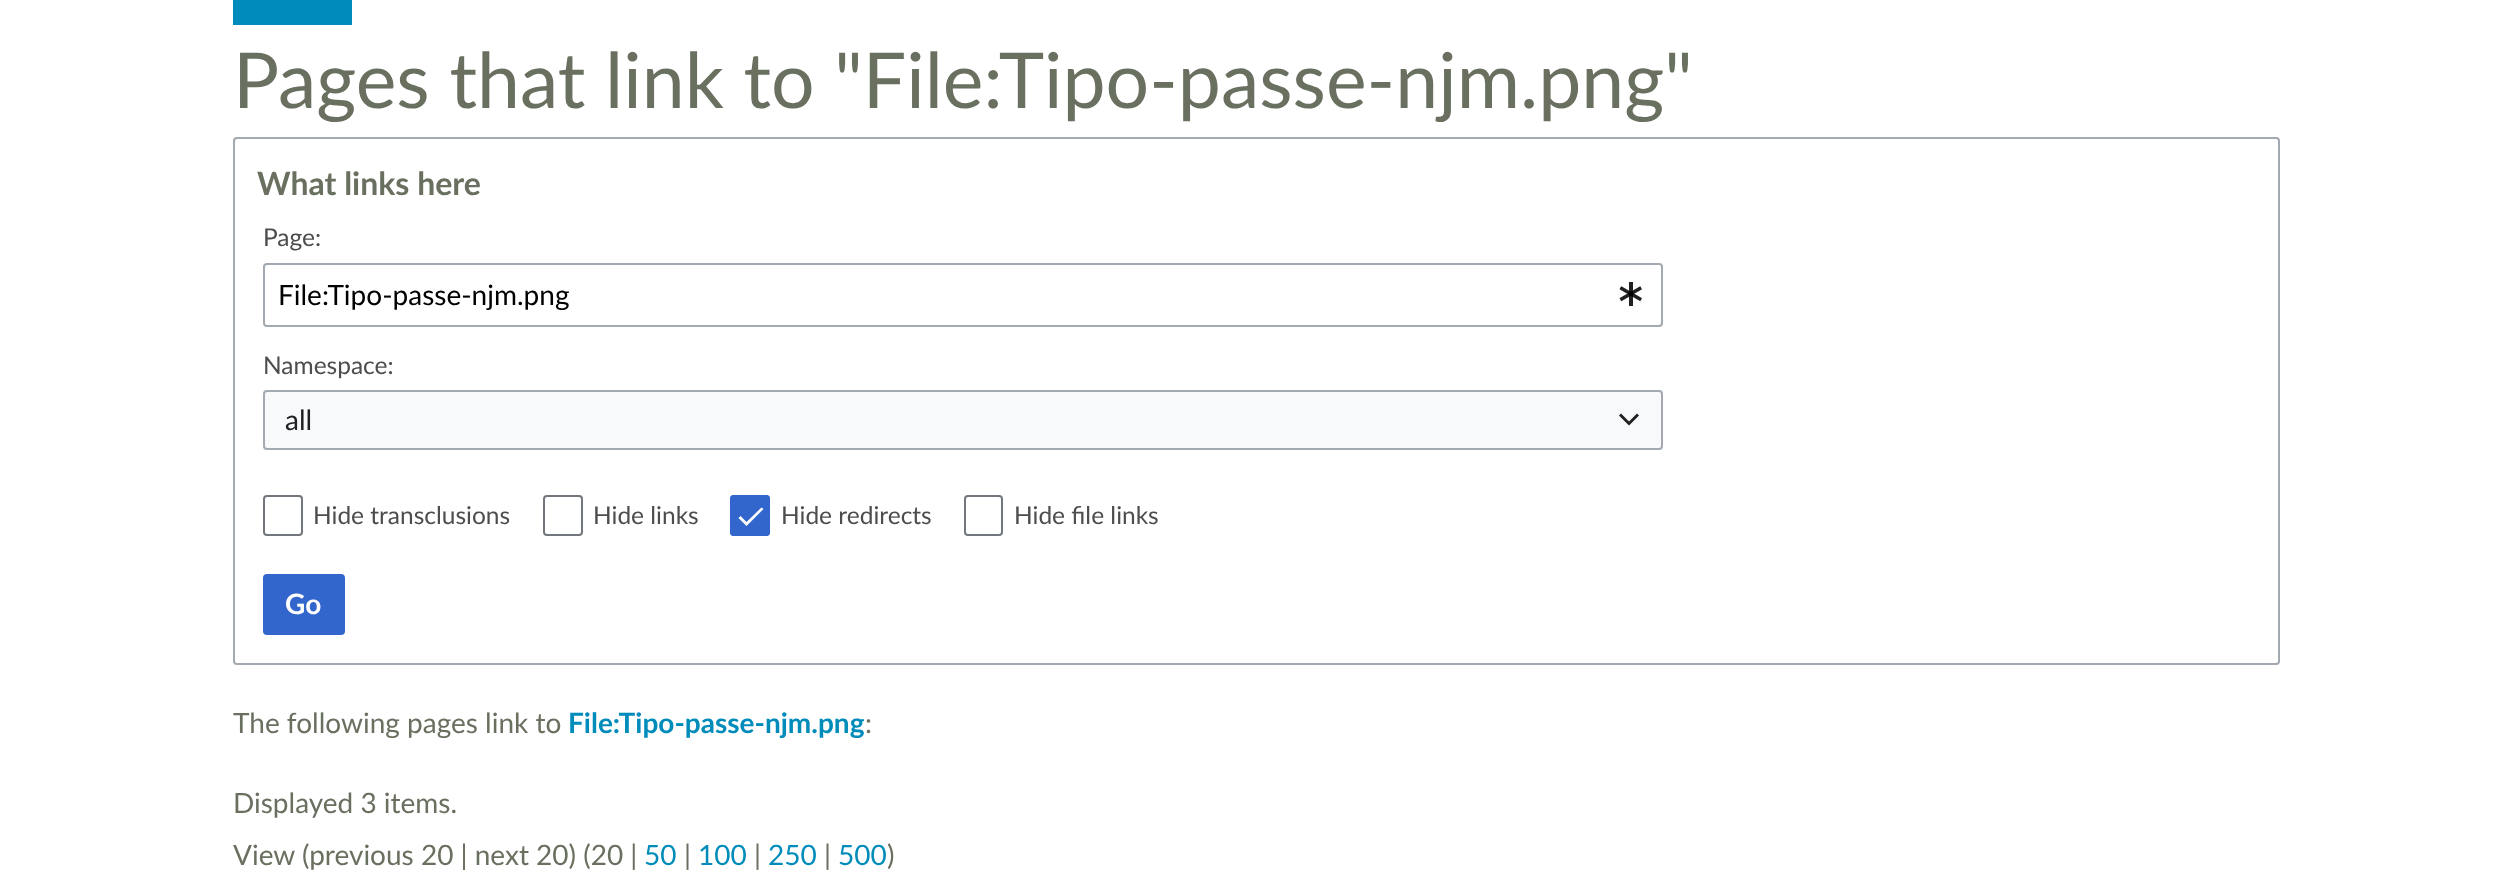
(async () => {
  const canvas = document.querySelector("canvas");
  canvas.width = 2513;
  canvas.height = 874;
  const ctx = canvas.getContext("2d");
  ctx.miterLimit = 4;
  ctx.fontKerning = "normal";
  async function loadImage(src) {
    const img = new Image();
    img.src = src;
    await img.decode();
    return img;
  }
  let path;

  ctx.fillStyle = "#ffffff";
  ctx.fillRect(0, 0, 2513, 874);
  ctx.fillStyle = "#008cba";
  ctx.fillRect(233, 0, 119, 25);
  ctx.beginPath();
  ctx.roundRect(234, 138, 2045, 526, 3);
  ctx.strokeStyle = "#a2a9b1";
  ctx.lineWidth = 2;
  ctx.stroke();
  ctx.beginPath();
  ctx.roundRect(264, 264, 1398, 62, 3);
  ctx.stroke();
  ctx.drawImage(await loadImage("img/1.png"), 1619, 282, 23, 24);
  ctx.fillStyle = "#f8f9fa";
  ctx.fillRect(263, 390, 1400, 60);
  ctx.beginPath();
  ctx.roundRect(264, 391, 1398, 58, 3);
  ctx.stroke();
  ctx.fillStyle = "#202021";
  path = new Path2D("M1637 413.5L1629 421.5L1621 413.5L1619 415.5L1629 425.5L1639 415.5Z");
  ctx.fill(path);
  ctx.beginPath();
  ctx.roundRect(264, 496, 38, 39, 3);
  ctx.strokeStyle = "#72777d";
  ctx.stroke();
  ctx.beginPath();
  ctx.roundRect(544, 496, 38, 39, 3);
  ctx.stroke();
  ctx.fillStyle = "#3366cc";
  ctx.beginPath();
  ctx.roundRect(730, 495, 40, 41, 4);
  ctx.fill();
  ctx.fillStyle = "#ffffff";
  path = new Path2D("M746.5 522L740.5 516L738.5 518L746.5 526L763.5 509L761.5 507.5Z");
  ctx.fill(path);
  ctx.beginPath();
  ctx.roundRect(731, 496, 38, 39, 3);
  ctx.strokeStyle = "#3366cc";
  ctx.stroke();
  ctx.beginPath();
  ctx.roundRect(965, 496, 37, 39, 3);
  ctx.strokeStyle = "#72777d";
  ctx.stroke();
  ctx.fillStyle = "#3366cc";
  ctx.beginPath();
  ctx.roundRect(264, 575, 80, 59, 3);
  ctx.fill();
  ctx.strokeStyle = "#3366cc";
  ctx.stroke();
  ctx.font = "77px Lato";
  ctx.fillStyle = "#697060";
  ctx.fillText("Pages that link to \"File:Tipo-passe-njm.png\"", 233, 108);
  ctx.font = "bold 32px Lato";
  ctx.fillText("What links here", 257, 195);
  ctx.font = "24.5px Lato";
  ctx.fillStyle = "#4d4d4d";
  ctx.fillText("Page:", 263, 246);
  ctx.font = "28px Lato";
  ctx.fillStyle = "#000000";
  ctx.fillText("File:Tipo-passe-njm.png", 278, 305);
  ctx.font = "24.5px Lato";
  ctx.fillStyle = "#4d4d4d";
  ctx.fillText("Namespace:", 263, 374);
  ctx.font = "28px Lato";
  ctx.fillStyle = "#202122";
  ctx.fillText("all", 285, 430);
  ctx.font = "24.5px Lato";
  ctx.fillStyle = "#4d4d4d";
  for (const [text, x, y] of [
    ["Hide transclusions", 313, 524],
    ["Hide links", 593, 524],
    ["Hide redirects", 781, 524],
    ["Hide file links", 1014, 524],
  ]) {
    ctx.fillText(text, x, y);
  }
  ctx.font = "bold 28px Lato";
  ctx.fillStyle = "#ffffff";
  ctx.fillText("Go", 285, 614);
  ctx.font = "28px Lato";
  ctx.fillStyle = "#697060";
  ctx.fillText("The following pages link to", 233, 733);
  ctx.font = "bold 28px Lato";
  ctx.fillStyle = "#008cba";
  ctx.fillText("File:Tipo-passe-njm.png", 568, 733);
  ctx.font = "28px Lato";
  ctx.fillStyle = "#697060";
  for (const [text, x, y] of [
    [":", 865, 733],
    ["Displayed 3 items.", 233, 813],
    ["View (previous 20 | next 20) (20 |", 233, 865],
  ]) {
    ctx.fillText(text, x, y);
  }
  ctx.fillStyle = "#008cba";
  ctx.fillText("50", 644, 865);
  ctx.fillStyle = "#697060";
  ctx.fillText("|", 684, 865);
  ctx.fillStyle = "#008cba";
  ctx.fillText("100", 698, 865);
  ctx.fillStyle = "#697060";
  ctx.fillText("|", 754, 865);
  ctx.fillStyle = "#008cba";
  ctx.fillText("250", 768, 865);
  ctx.fillStyle = "#697060";
  ctx.fillText("|", 824, 865);
  ctx.fillStyle = "#008cba";
  ctx.fillText("500", 838, 865);
  ctx.fillStyle = "#697060";
  ctx.fillText(")", 887, 865);
})();
